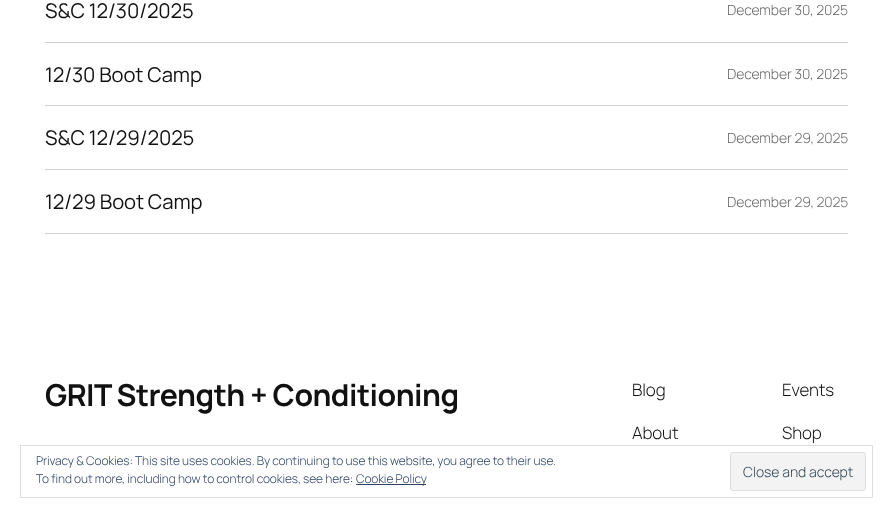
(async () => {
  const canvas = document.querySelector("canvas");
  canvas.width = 893;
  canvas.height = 518;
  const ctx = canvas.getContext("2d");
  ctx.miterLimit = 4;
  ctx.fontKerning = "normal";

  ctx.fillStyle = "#ffffff";
  ctx.fillRect(0, 0, 893, 518);
  for (const [x, y, w, h, color] of [
    [45, 42, 803, 1, "#cfcfcf"],
    [45, 105, 803, 1, "#cfcfcf"],
    [45, 169, 803, 1, "#cfcfcf"],
    [45, 233, 803, 1, "#cfcfcf"],
  ]) {
    ctx.fillStyle = color;
    ctx.fillRect(x, y, w, h);
  }
  ctx.strokeStyle = "#dedede";
  ctx.strokeRect(20.5, 445.5, 852, 52);
  ctx.fillStyle = "#2e4467";
  ctx.fillRect(356, 484, 70, 1);
  ctx.fillStyle = "#f3f3f3";
  ctx.beginPath();
  ctx.roundRect(730.5, 452.5, 135, 38, 2.5);
  ctx.fill();
  ctx.stroke();
  ctx.letterSpacing = "-0.1px";
  ctx.font = "20.25px Manrope";
  ctx.fillStyle = "#111111";
  ctx.fillText("S&C 12/30/2025", 45, 18);
  ctx.font = "300 14px Manrope";
  ctx.fillStyle = "#686868";
  ctx.fillText("December 30, 2025", 727, 15);
  ctx.font = "20.25px Manrope";
  ctx.fillStyle = "#111111";
  ctx.fillText("12/30 Boot Camp", 45, 82);
  ctx.font = "300 14px Manrope";
  ctx.fillStyle = "#686868";
  ctx.fillText("December 30, 2025", 727, 79);
  ctx.font = "20.25px Manrope";
  ctx.fillStyle = "#111111";
  ctx.fillText("S&C 12/29/2025", 45, 145);
  ctx.font = "300 14px Manrope";
  ctx.fillStyle = "#686868";
  ctx.fillText("December 29, 2025", 727, 143);
  ctx.font = "20.25px Manrope";
  ctx.fillStyle = "#111111";
  ctx.fillText("12/29 Boot Camp", 45, 209);
  ctx.font = "300 14px Manrope";
  ctx.fillStyle = "#686868";
  ctx.fillText("December 29, 2025", 727, 207);
  ctx.letterSpacing = "-0.5px";
  ctx.font = "bold 30.25px Manrope";
  ctx.fillStyle = "#111111";
  ctx.fillText("GRIT Strength + Conditioning", 45, 406);
  ctx.letterSpacing = "-0.1px";
  ctx.font = "300 17px Manrope";
  for (const [text, x, y] of [
    ["Blog", 632, 396],
    ["About", 632, 439],
    ["Events", 782, 396],
    ["Shop", 782, 439],
  ]) {
    ctx.fillText(text, x, y);
  }
  ctx.font = "300 12px Manrope";
  ctx.fillStyle = "#2e4467";
  for (const [text, x, y] of [
    ["Privacy & Cookies: This site uses cookies. By continuing to use this website, you agree to their use.", 36, 465],
    ["To find out more, including how to control cookies, see here:", 36, 483],
    ["Cookie Policy", 356, 483],
  ]) {
    ctx.fillText(text, x, y);
  }
  ctx.letterSpacing = "0px";
  ctx.font = "300 14px Manrope";
  ctx.fillStyle = "#2e4453";
  ctx.fillText("Close and accept", 743, 477);
})();
